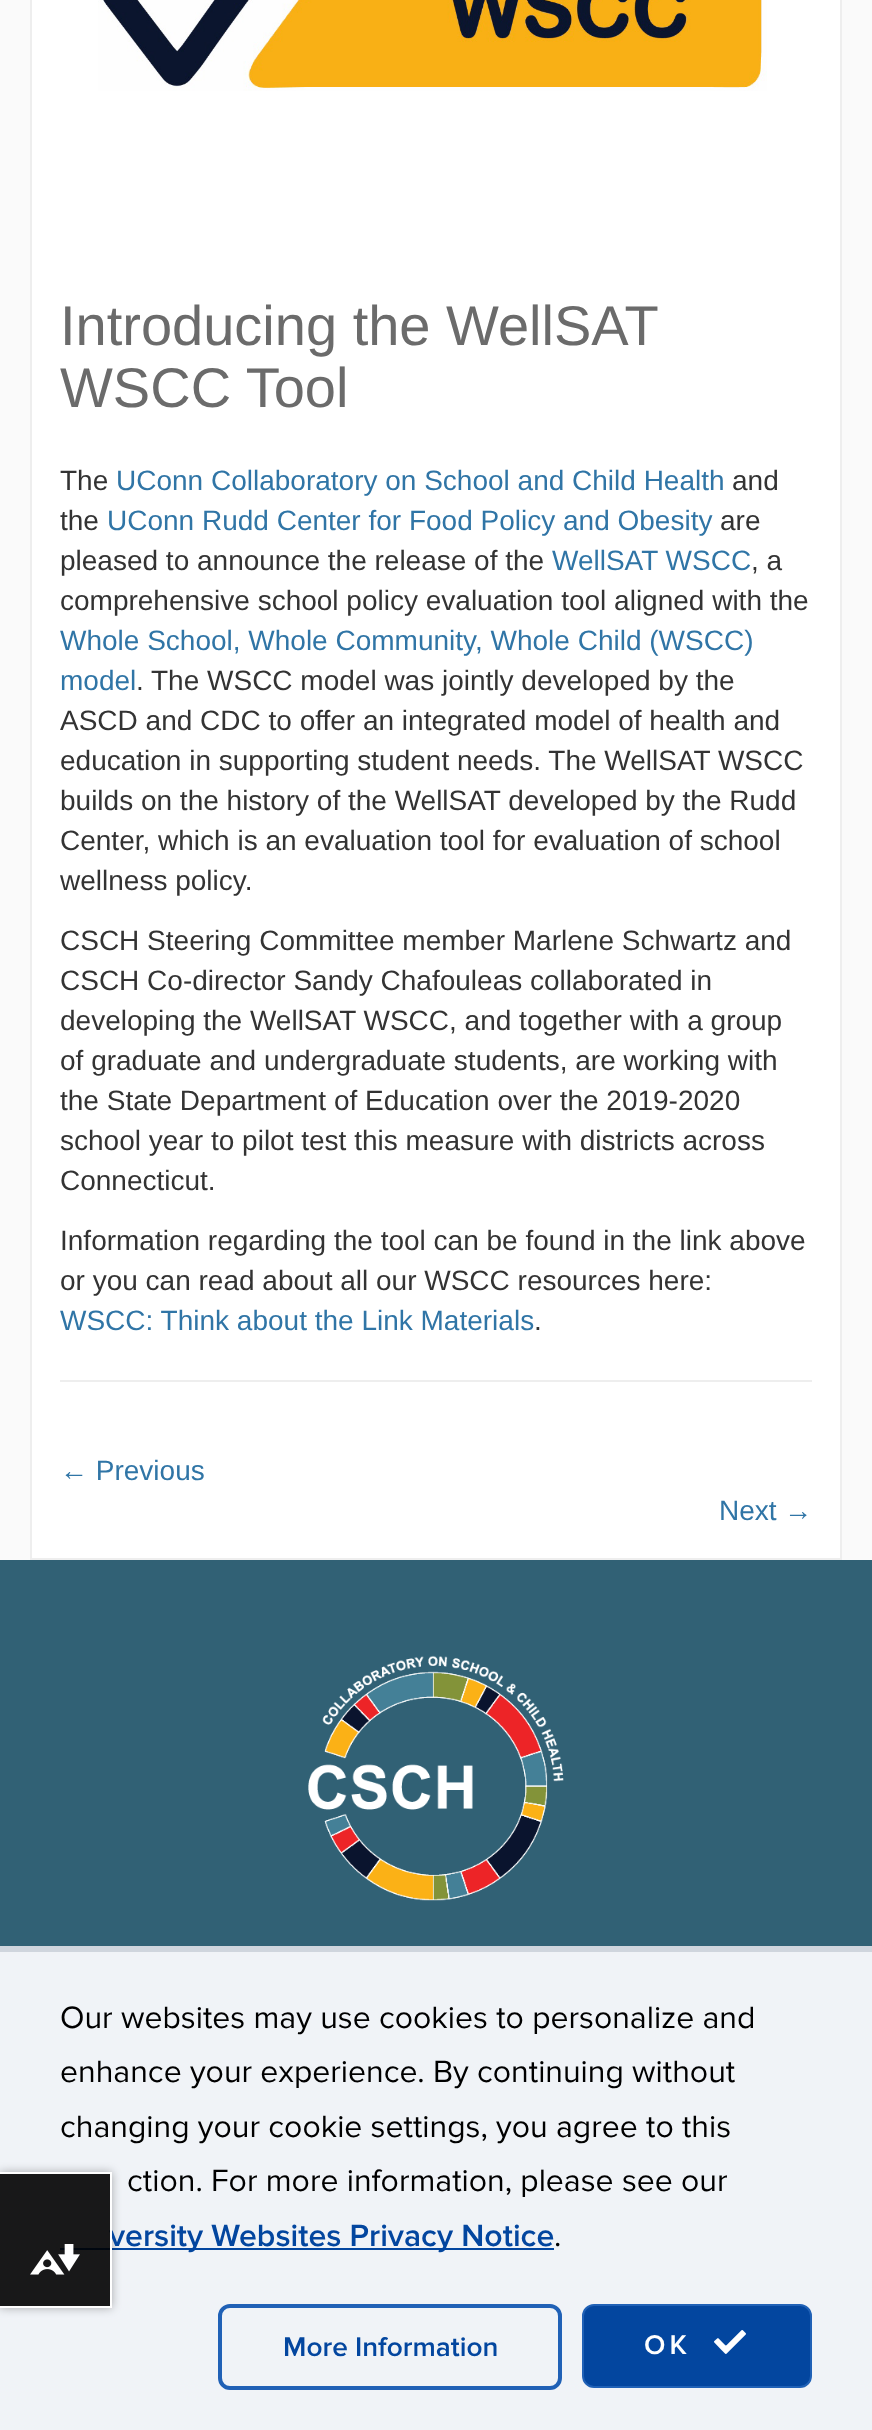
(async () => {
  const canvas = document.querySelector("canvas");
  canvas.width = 872;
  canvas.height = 2430;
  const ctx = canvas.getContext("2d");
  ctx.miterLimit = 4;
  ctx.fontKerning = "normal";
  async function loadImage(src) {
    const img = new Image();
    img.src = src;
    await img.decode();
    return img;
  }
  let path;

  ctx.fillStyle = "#fafafa";
  ctx.fillRect(0, 0, 872, 2430);
  for (const [x, y, w, h, color] of [
    [32, 0, 808, 1558, "#ffffff"],
    [840, 0, 2, 1560, "#eeeeee"],
    [30, 1558, 812, 2, "#eeeeee"],
    [30, 0, 2, 1560, "#eeeeee"],
  ]) {
    ctx.fillStyle = color;
    ctx.fillRect(x, y, w, h);
  }
  ctx.drawImage(await loadImage("img/1.png"), 98, 0, 669, 91);
  ctx.fillRect(60, 1380, 752, 2);
  ctx.fillStyle = "#316175";
  ctx.fillRect(0, 1560, 872, 386);
  ctx.drawImage(await loadImage("img/2.png"), 308, 1655, 256, 246);
  for (const [x, y, w, h, color] of [
    [0, 1952, 872, 478, "#f0f3f7"],
    [0, 1946, 872, 6, "#cfd5dd"],
    [60, 2248, 494, 2, "#03469f"],
  ]) {
    ctx.fillStyle = color;
    ctx.fillRect(x, y, w, h);
  }
  ctx.beginPath();
  ctx.roundRect(220, 2306, 340, 82, 10);
  ctx.strokeStyle = "#2061b6";
  ctx.lineWidth = 4;
  ctx.stroke();
  ctx.beginPath();
  ctx.roundRect(583, 2305, 228, 82, 11);
  ctx.fill();
  ctx.lineWidth = 2;
  ctx.stroke();
  ctx.drawImage(await loadImage("img/3.png"), 714, 2330, 32, 24);
  ctx.save();
  path = new Path2D("M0 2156H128V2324H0ZM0 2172H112V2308H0Z");
  ctx.clip(path, "evenodd");
  ctx.fillStyle = "rgba(0, 0, 0, 0.3)";
  ctx.filter = "blur(5px)";
  ctx.beginPath();
  ctx.rect(0, 2172, 112, 136);
  ctx.fill();
  ctx.filter = "none";
  ctx.restore();
  ctx.fillStyle = "#ffffff";
  ctx.fillRect(0, 2172, 112, 2);
  ctx.font = "56px Liberation Sans";
  ctx.fillStyle = "#6b6b6b";
  ctx.fillText("Introducing the WellSAT", 60, 345);
  ctx.fillText("WSCC Tool", 60, 407);
  ctx.font = "28px Liberation Sans";
  ctx.fillStyle = "#333333";
  ctx.fillText("The", 60, 490);
  ctx.fillStyle = "#3075a6";
  ctx.fillText("UConn Collaboratory on School and Child Health", 116, 490);
  ctx.fillStyle = "#333333";
  ctx.fillText("and", 732, 490);
  ctx.fillText("the", 60, 530);
  ctx.fillStyle = "#3075a6";
  ctx.fillText("UConn Rudd Center for Food Policy and Obesity", 107, 530);
  ctx.fillStyle = "#333333";
  ctx.fillText("are", 720, 530);
  ctx.fillText("pleased to announce the release of the", 60, 570);
  ctx.fillStyle = "#3075a6";
  ctx.fillText("WellSAT WSCC", 552, 570);
  ctx.fillStyle = "#333333";
  ctx.fillText(", a", 751, 570);
  ctx.fillText("comprehensive school policy evaluation tool aligned with the", 60, 610);
  ctx.fillStyle = "#3075a6";
  ctx.fillText("Whole School, Whole Community, Whole Child (WSCC)", 60, 650);
  ctx.fillText("model", 60, 690);
  ctx.fillStyle = "#333333";
  for (const [text, x, y] of [
    [".", 136, 690],
    ["The WSCC model was jointly developed by the", 151, 690],
    ["ASCD and CDC to offer an integrated model of health and", 60, 730],
    ["education in supporting student needs. The WellSAT WSCC", 60, 770],
    ["builds on the history of the WellSAT developed by the Rudd", 60, 810],
    ["Center, which is an evaluation tool for evaluation of school", 60, 850],
    ["wellness policy.", 60, 890],
    ["CSCH Steering Committee member Marlene Schwartz and", 60, 950],
    ["CSCH Co-director Sandy Chafouleas collaborated in", 60, 990],
    ["developing the WellSAT WSCC, and together with a group", 60, 1030],
    ["of graduate and undergraduate students, are working with", 60, 1070],
    ["the State Department of Education over the 2019-2020", 60, 1110],
    ["school year to pilot test this measure with districts across", 60, 1150],
    ["Connecticut.", 60, 1190],
    ["Information regarding the tool can be found in the link above", 60, 1250],
    ["or you can read about all our WSCC resources here:", 60, 1290],
  ]) {
    ctx.fillText(text, x, y);
  }
  ctx.fillStyle = "#3075a6";
  ctx.fillText("WSCC: Think about the Link Materials", 60, 1330);
  ctx.fillStyle = "#333333";
  ctx.fillText(".", 534, 1330);
  ctx.fillStyle = "#3075a6";
  ctx.fillText("← Previous", 60, 1480);
  ctx.fillText("Next →", 719, 1520);
  ctx.font = "32px Proxima Nova";
  ctx.fillStyle = "#000000";
  for (const [text, x, y] of [
    ["Our websites may use cookies to personalize and", 60, 2028],
    ["enhance your experience. By continuing without", 60, 2082],
    ["changing your cookie settings, you agree to this", 60, 2137],
    ["ction. For more information, please see our", 127, 2191],
  ]) {
    ctx.fillText(text, x, y);
  }
  ctx.font = "600 32px Proxima Nova";
  ctx.fillStyle = "#03469f";
  ctx.fillText("versity Websites Privacy Notice", 109, 2246);
  ctx.font = "32px Proxima Nova";
  ctx.fillStyle = "#000000";
  ctx.fillText(".", 554, 2246);
  ctx.font = "600 28px Proxima Nova";
  ctx.fillStyle = "#03469f";
  ctx.fillText("More Information", 283, 2356);
  ctx.letterSpacing = "4px";
  ctx.fillStyle = "#ffffff";
  ctx.fillText("OK", 644, 2354);
  for (const [x, y, w, h, color] of [
    [0, 2174, 110, 132, "rgba(0, 0, 0, 0.9)"],
    [110, 2172, 2, 136, "#ffffff"],
    [0, 2306, 112, 2, "#ffffff"],
  ]) {
    ctx.fillStyle = color;
    ctx.fillRect(x, y, w, h);
  }
  ctx.drawImage(await loadImage("img/4.png"), 30, 2244, 50, 31);
})();
